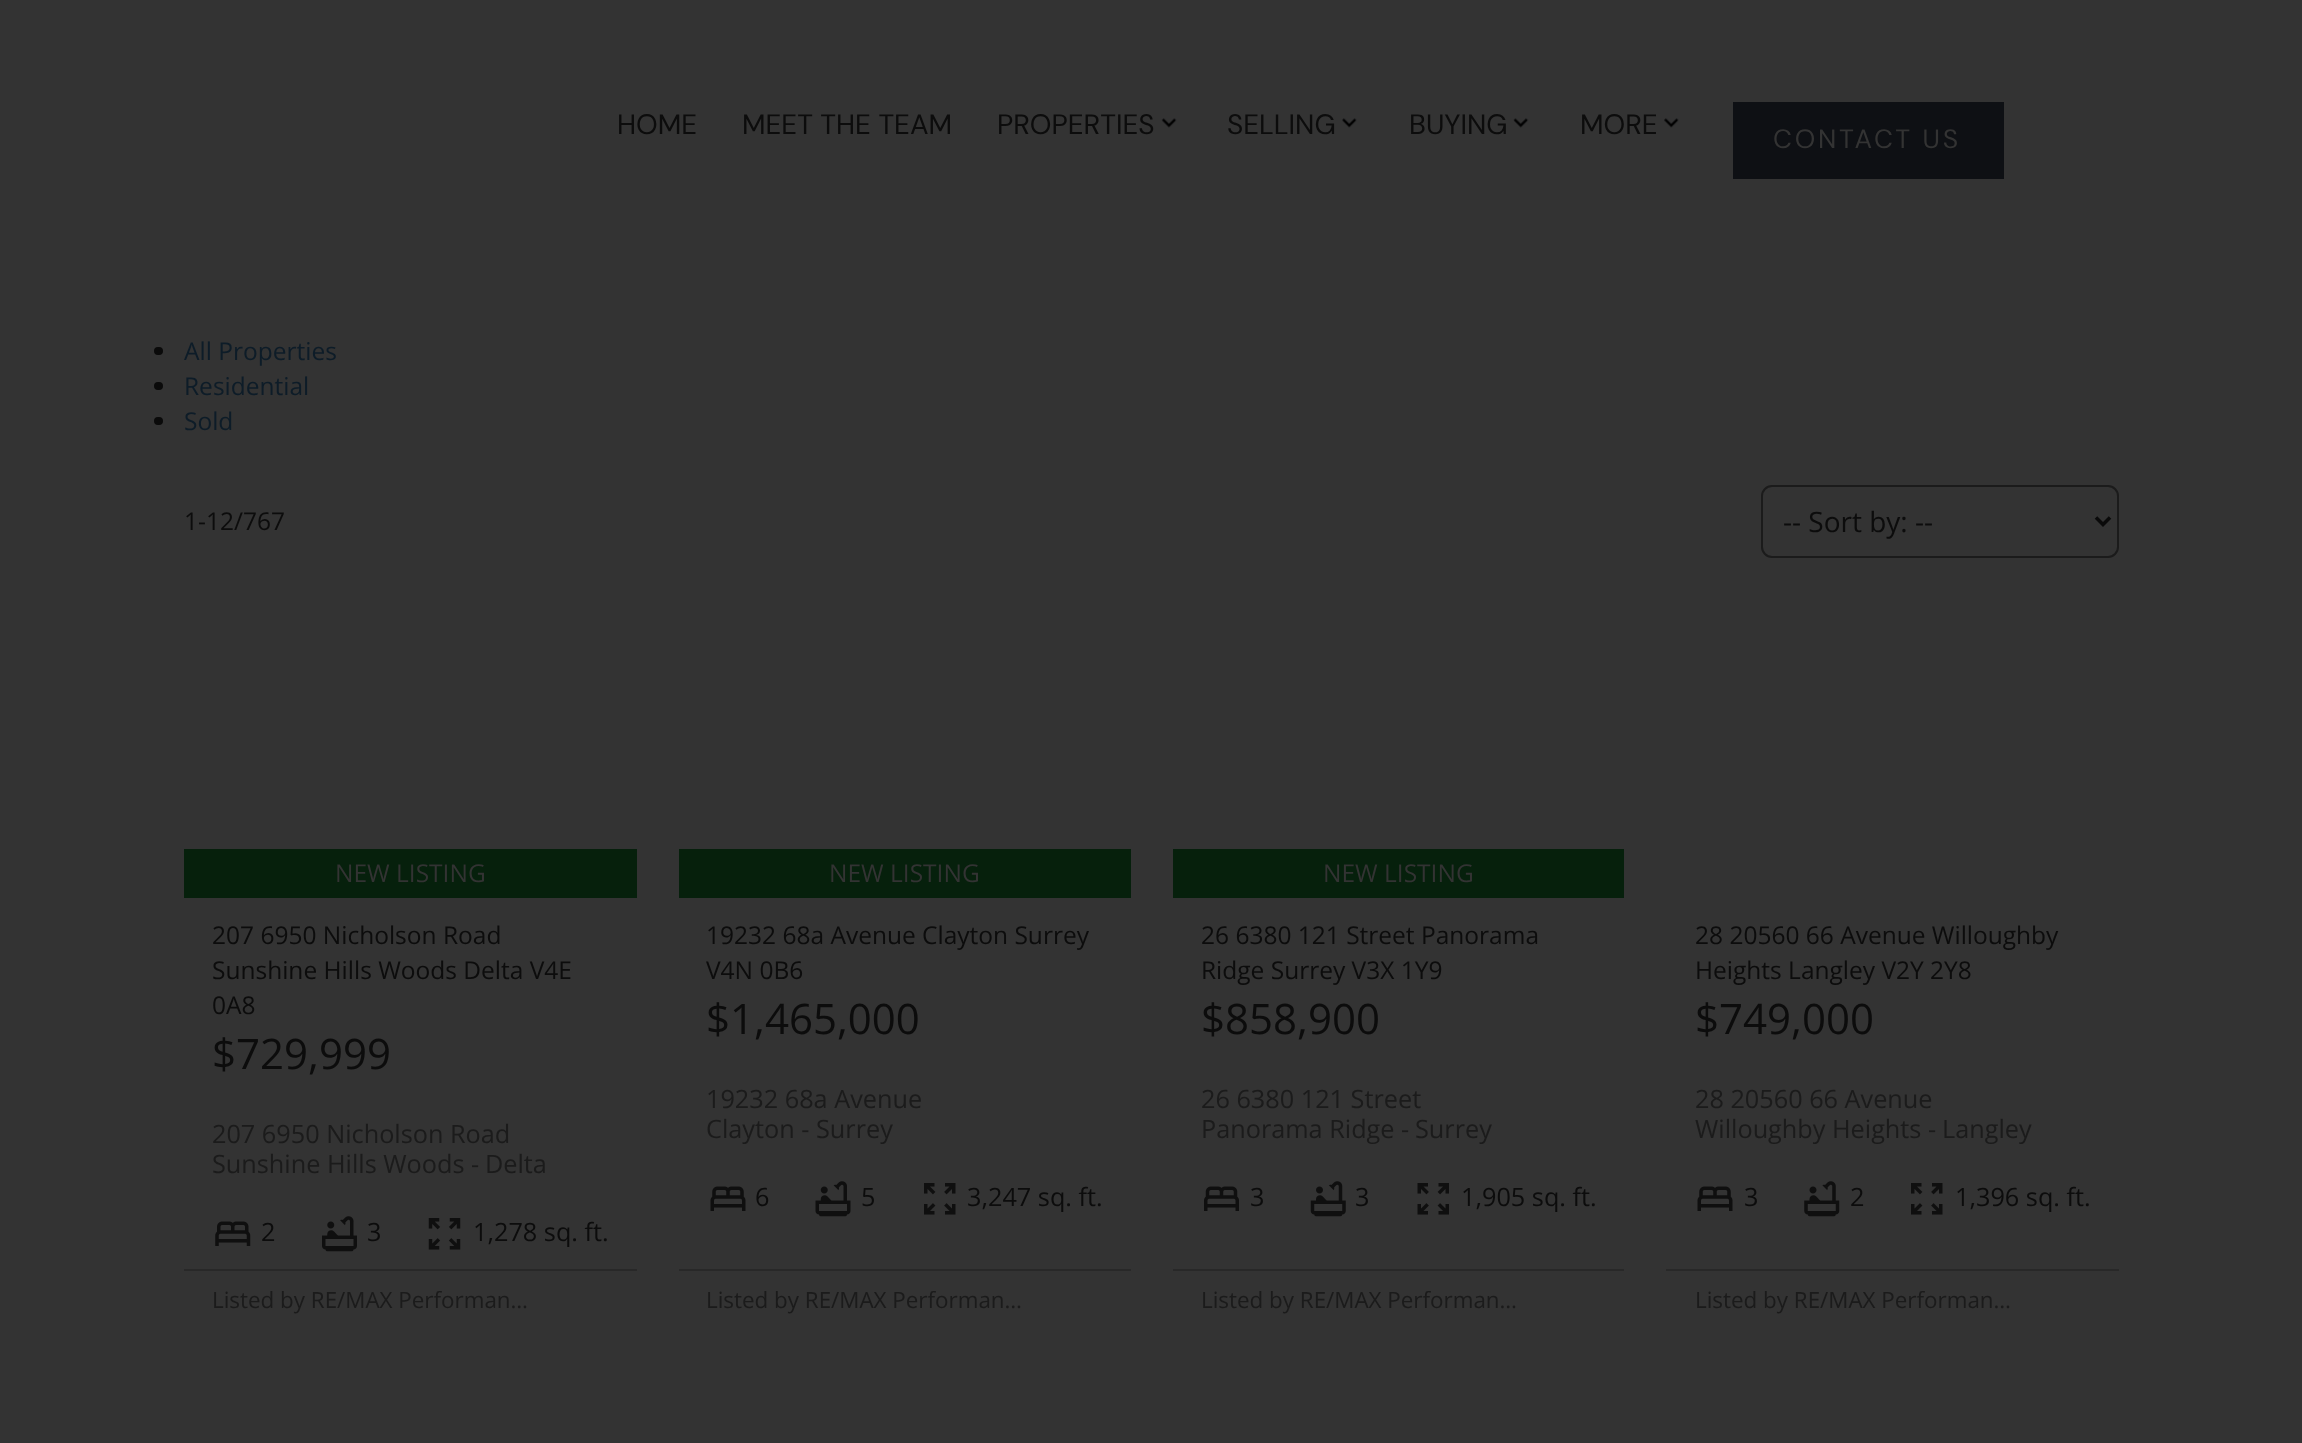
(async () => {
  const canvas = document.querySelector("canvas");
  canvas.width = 2302;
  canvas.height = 1443;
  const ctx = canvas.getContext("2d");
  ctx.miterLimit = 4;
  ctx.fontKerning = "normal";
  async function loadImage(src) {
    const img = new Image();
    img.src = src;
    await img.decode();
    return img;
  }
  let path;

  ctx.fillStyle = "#333333";
  ctx.fillRect(0, 0, 2302, 1443);
  ctx.drawImage(await loadImage("img/1.png"), 1161, 118, 16, 10);
  ctx.drawImage(await loadImage("img/2.png"), 1342, 118, 15, 10);
  ctx.drawImage(await loadImage("img/3.png"), 1513, 118, 16, 10);
  ctx.drawImage(await loadImage("img/4.png"), 1664, 118, 15, 10);
  ctx.fillStyle = "#0e1014";
  ctx.fillRect(1733, 102, 271, 77);
  ctx.fillStyle = "#0a0a0a";
  ctx.beginPath();
  ctx.roundRect(154, 347, 9, 8, 4);
  ctx.fill();
  ctx.beginPath();
  ctx.roundRect(154, 382, 9, 8, 4);
  ctx.fill();
  ctx.beginPath();
  ctx.roundRect(154, 417, 9, 8, 4);
  ctx.fill();
  ctx.beginPath();
  ctx.roundRect(1762, 486, 356, 71, 10);
  ctx.strokeStyle = "#1b1b1b";
  ctx.lineWidth = 2;
  ctx.stroke();
  path = new Path2D("M2096 517.5L2103 524.5L2110 517.5");
  ctx.strokeStyle = "#0a0a0a";
  ctx.lineWidth = 3.5;
  ctx.stroke(path);
  ctx.fillStyle = "#06200c";
  ctx.fillRect(184, 849, 453, 49);
  ctx.drawImage(await loadImage("img/5.png"), 215, 1221, 36, 25);
  ctx.drawImage(await loadImage("img/6.png"), 322, 1216, 35, 36);
  ctx.drawImage(await loadImage("img/7.png"), 428, 1218, 33, 32);
  ctx.fillStyle = "#282828";
  ctx.fillRect(184, 1269, 453, 2);
  ctx.fillStyle = "#06200c";
  ctx.fillRect(679, 849, 452, 49);
  ctx.drawImage(await loadImage("img/8.png"), 710, 1186, 36, 25);
  ctx.drawImage(await loadImage("img/9.png"), 815, 1181, 36, 36);
  ctx.drawImage(await loadImage("img/10.png"), 924, 1183, 32, 32);
  ctx.fillStyle = "#282828";
  ctx.fillRect(679, 1269, 452, 2);
  ctx.fillStyle = "#06200c";
  ctx.fillRect(1173, 849, 451, 49);
  ctx.drawImage(await loadImage("img/11.png"), 1204, 1186, 35, 25);
  ctx.drawImage(await loadImage("img/12.png"), 1310, 1181, 36, 36);
  ctx.drawImage(await loadImage("img/13.png"), 1417, 1183, 32, 32);
  ctx.fillStyle = "#282828";
  ctx.fillRect(1173, 1269, 451, 2);
  ctx.drawImage(await loadImage("img/8.png"), 1697, 1186, 36, 25);
  ctx.drawImage(await loadImage("img/14.png"), 1804, 1181, 36, 36);
  ctx.drawImage(await loadImage("img/10.png"), 1911, 1183, 32, 32);
  ctx.fillRect(1666, 1269, 453, 2);
  ctx.font = "28px DM Sans";
  ctx.fillStyle = "#0c0c0c";
  for (const [text, x, y] of [
    ["HOME", 617, 134],
    ["MEET THE TEAM", 742, 134],
    ["PROPERTIES", 997, 134],
    ["SELLING", 1227, 134],
    ["BUYING", 1409, 134],
    ["MORE", 1580, 134],
  ]) {
    ctx.fillText(text, x, y);
  }
  ctx.letterSpacing = "2.75px";
  ctx.font = "26.5px DM Sans";
  ctx.fillStyle = "#333333";
  ctx.fillText("CONTACT US", 1773, 148);
  ctx.letterSpacing = "0px";
  ctx.font = "24.5px Open Sans";
  ctx.fillStyle = "#0d1c28";
  for (const [text, x, y] of [
    ["All Properties", 184, 360],
    ["Residential", 184, 395],
    ["Sold", 184, 430],
  ]) {
    ctx.fillText(text, x, y);
  }
  ctx.fillStyle = "#0c0c0c";
  ctx.fillText("1-12/767", 184, 530);
  ctx.font = "28px Open Sans";
  ctx.fillText("-- Sort by: --", 1783, 532);
  ctx.font = "24.5px Open Sans";
  ctx.fillStyle = "#333333";
  ctx.fillText("NEW LISTING", 335, 882);
  ctx.fillStyle = "#0c0c0c";
  for (const [text, x, y] of [
    ["207 6950 Nicholson Road", 212, 944],
    ["Sunshine Hills Woods Delta V4E", 212, 979],
    ["0A8", 212, 1014],
  ]) {
    ctx.fillText(text, x, y);
  }
  ctx.font = "42px Open Sans";
  ctx.fillText("$729,999", 212, 1069);
  ctx.font = "25.25px Open Sans";
  ctx.fillStyle = "#1b1b1b";
  for (const [text, x, y] of [
    ["207 6950 Nicholson Road", 212, 1143],
    ["Sunshine Hills Woods -", 212, 1173],
    ["Delta", 485, 1173],
  ]) {
    ctx.fillText(text, x, y);
  }
  ctx.fillStyle = "#0c0c0c";
  for (const [text, x, y] of [
    ["2", 261, 1241],
    ["3", 367, 1241],
    ["1,278 sq. ft.", 473, 1241],
  ]) {
    ctx.fillText(text, x, y);
  }
  ctx.font = "22.4px Open Sans";
  ctx.fillStyle = "#1b1b1b";
  ctx.fillText("Listed by RE/MAX Performan…", 212, 1308);
  ctx.font = "24.5px Open Sans";
  ctx.fillStyle = "#333333";
  ctx.fillText("NEW LISTING", 829, 882);
  ctx.fillStyle = "#0c0c0c";
  ctx.fillText("19232 68a Avenue Clayton Surrey", 706, 944);
  ctx.fillText("V4N 0B6", 706, 979);
  ctx.font = "42px Open Sans";
  ctx.fillText("$1,465,000", 706, 1034);
  ctx.font = "25.25px Open Sans";
  ctx.fillStyle = "#1b1b1b";
  for (const [text, x, y] of [
    ["19232 68a Avenue", 706, 1108],
    ["Clayton -", 706, 1138],
    ["Surrey", 816, 1138],
  ]) {
    ctx.fillText(text, x, y);
  }
  ctx.fillStyle = "#0c0c0c";
  for (const [text, x, y] of [
    ["6", 755, 1206],
    ["5", 861, 1206],
    ["3,247 sq. ft.", 967, 1206],
  ]) {
    ctx.fillText(text, x, y);
  }
  ctx.font = "22.4px Open Sans";
  ctx.fillStyle = "#1b1b1b";
  ctx.fillText("Listed by RE/MAX Performan…", 706, 1308);
  ctx.font = "24.5px Open Sans";
  ctx.fillStyle = "#333333";
  ctx.fillText("NEW LISTING", 1323, 882);
  ctx.fillStyle = "#0c0c0c";
  ctx.fillText("26 6380 121 Street Panorama", 1201, 944);
  ctx.fillText("Ridge Surrey V3X 1Y9", 1201, 979);
  ctx.font = "42px Open Sans";
  ctx.fillText("$858,900", 1201, 1034);
  ctx.font = "25.25px Open Sans";
  ctx.fillStyle = "#1b1b1b";
  for (const [text, x, y] of [
    ["26 6380 121 Street", 1201, 1108],
    ["Panorama Ridge -", 1201, 1138],
    ["Surrey", 1415, 1138],
  ]) {
    ctx.fillText(text, x, y);
  }
  ctx.fillStyle = "#0c0c0c";
  for (const [text, x, y] of [
    ["3", 1250, 1206],
    ["3", 1355, 1206],
    ["1,905 sq. ft.", 1461, 1206],
  ]) {
    ctx.fillText(text, x, y);
  }
  ctx.font = "22.4px Open Sans";
  ctx.fillStyle = "#1b1b1b";
  ctx.fillText("Listed by RE/MAX Performan…", 1201, 1308);
  ctx.font = "24.5px Open Sans";
  ctx.fillStyle = "#0c0c0c";
  ctx.fillText("28 20560 66 Avenue Willoughby", 1695, 944);
  ctx.fillText("Heights Langley V2Y 2Y8", 1695, 979);
  ctx.font = "42px Open Sans";
  ctx.fillText("$749,000", 1695, 1034);
  ctx.font = "25.25px Open Sans";
  ctx.fillStyle = "#1b1b1b";
  for (const [text, x, y] of [
    ["28 20560 66 Avenue", 1695, 1108],
    ["Willoughby Heights -", 1695, 1138],
    ["Langley", 1942, 1138],
  ]) {
    ctx.fillText(text, x, y);
  }
  ctx.fillStyle = "#0c0c0c";
  for (const [text, x, y] of [
    ["3", 1744, 1206],
    ["2", 1850, 1206],
    ["1,396 sq. ft.", 1955, 1206],
  ]) {
    ctx.fillText(text, x, y);
  }
  ctx.font = "22.4px Open Sans";
  ctx.fillStyle = "#1b1b1b";
  ctx.fillText("Listed by RE/MAX Performan…", 1695, 1308);
})();
